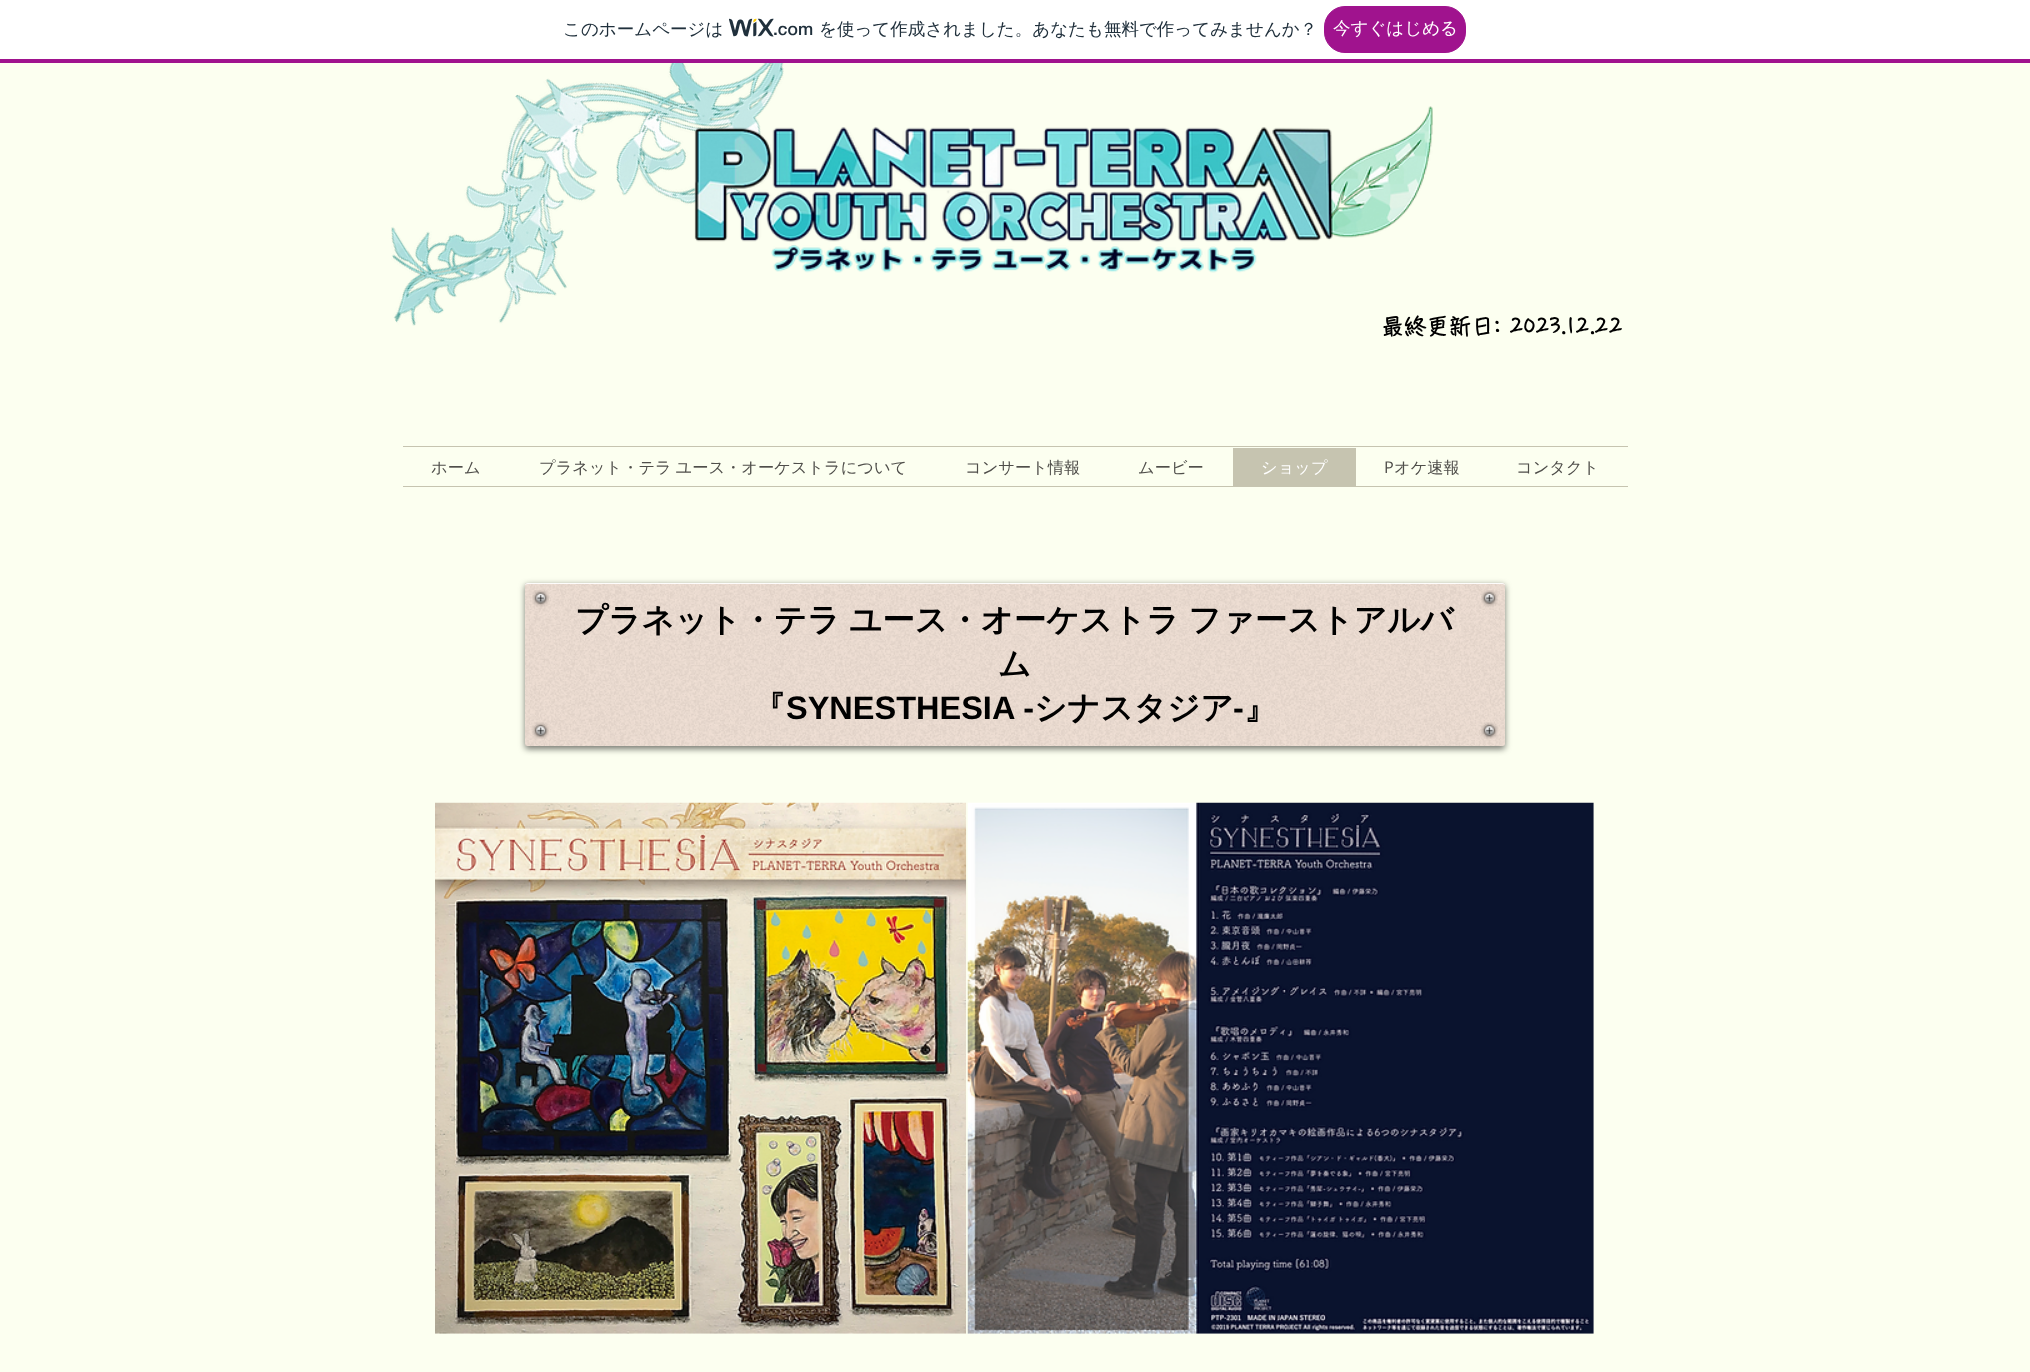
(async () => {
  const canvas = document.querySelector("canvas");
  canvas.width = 2030;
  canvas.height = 1372;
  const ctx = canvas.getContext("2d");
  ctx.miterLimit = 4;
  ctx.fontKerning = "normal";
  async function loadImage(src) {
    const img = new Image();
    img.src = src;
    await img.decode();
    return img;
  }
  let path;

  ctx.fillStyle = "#fcfff0";
  ctx.fillRect(0, 0, 2030, 1372);
  ctx.fillStyle = "#ffffff";
  ctx.fillRect(0, 0, 2030, 59);
  ctx.fillStyle = "#a0138e";
  ctx.fillRect(0, 59, 2030, 4);
  ctx.drawImage(await loadImage("img/1.png"), 729, 18, 45, 19);
  ctx.beginPath();
  ctx.roundRect(1324.5, 6.5, 141, 46, 20.5);
  ctx.fill();
  ctx.strokeStyle = "#a0138e";
  ctx.stroke();
  ctx.drawImage(await loadImage("img/2.png"), 391, 63, 393, 263);
  ctx.drawImage(await loadImage("img/3.png"), 694, 106, 739, 167);
  for (const [x, y, w, h, color] of [
    [403, 446, 1225, 1, "#c6c4b0"],
    [403, 486, 1225, 1, "#c6c4b0"],
    [1233, 448, 123, 38, "#c6c4b0"],
  ]) {
    ctx.fillStyle = color;
    ctx.fillRect(x, y, w, h);
  }
  ctx.fillStyle = "rgba(0, 0, 0, 0.53)";
  ctx.filter = "blur(3px)";
  ctx.beginPath();
  ctx.roundRect(525, 585, 980, 164, 2.5);
  ctx.fill();
  ctx.filter = "none";
  ctx.fillStyle = "#efdfd4";
  ctx.beginPath();
  ctx.roundRect(525, 583, 980, 163, 2.5);
  ctx.fill();
  ctx.drawImage(await loadImage("img/4.png"), 525, 583, 980, 163);
  ctx.fillStyle = "rgba(255, 255, 255, 0.92)";
  path = new Path2D("M528 584H1502C1504 584 1505 585 1505 586C1505 584 1504 583 1502 583H528C526 583 525 584 525 586C525 585 526 584 528 584Z");
  ctx.fill(path);
  ctx.drawImage(await loadImage("img/5.png"), 532, 590, 17, 17);
  ctx.drawImage(await loadImage("img/6.png"), 1481, 590, 17, 17);
  ctx.drawImage(await loadImage("img/7.png"), 532, 722, 17, 17);
  ctx.drawImage(await loadImage("img/8.png"), 1481, 722, 17, 17);
  ctx.drawImage(await loadImage("img/9.png"), 435, 802, 532, 532);
  ctx.drawImage(await loadImage("img/10.png"), 967, 802, 627, 532);
  ctx.font = "500 17.5px WenQuanYi Zen Hei";
  ctx.fillStyle = "#20303c";
  ctx.fillText("このホームページは", 563, 35);
  ctx.font = "500 17.5px 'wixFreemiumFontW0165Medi'";
  ctx.fillText(".com", 773, 35);
  ctx.font = "500 17.5px WenQuanYi Zen Hei";
  ctx.fillText("を使って作成されました。あなたも無料で作ってみませんか？", 819, 35);
  ctx.fillStyle = "#ffffff";
  ctx.fillText("今すぐはじめる", 1333, 34);
  ctx.font = "bold 22.5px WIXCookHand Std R";
  ctx.fillStyle = "#000000";
  ctx.fillText("最終更新日: 2023.12.22", 1381, 335);
  ctx.font = "500 16.25px WenQuanYi Zen Hei";
  ctx.fillStyle = "#4f4e4a";
  ctx.fillText("ホーム", 431, 473);
  ctx.wordSpacing = "-1px";
  ctx.fillText("プラネット・テラ ユース・オーケストラについて", 539, 473);
  ctx.wordSpacing = "0px";
  ctx.fillText("コンサート情報", 965, 473);
  ctx.fillText("ムービー", 1138, 473);
  ctx.fillStyle = "#ffffff";
  ctx.fillText("ショップ", 1261, 473);
  ctx.font = "16.25px Open Sans";
  ctx.fillStyle = "#4f4e4a";
  ctx.fillText("P", 1384, 473);
  ctx.font = "500 16.25px WenQuanYi Zen Hei";
  ctx.fillText("オケ速報", 1394, 473);
  ctx.fillText("コンタクト", 1516, 473);
  ctx.wordSpacing = "-1px";
  ctx.font = "bold 32.5px WenQuanYi Zen Hei";
  ctx.fillStyle = "#000000";
  ctx.fillText("プラネット・テラ ユース・オーケストラ ファーストアルバ", 575, 631);
  ctx.wordSpacing = "0px";
  ctx.fillText("ム", 998, 675);
  ctx.fillText("『", 753, 719);
  ctx.font = "bold 32.5px Liberation Sans";
  ctx.fillText("SYNESTHESIA -", 786, 719);
  ctx.font = "bold 32.5px WenQuanYi Zen Hei";
  ctx.fillText("シナスタジア", 1034, 719);
  ctx.font = "bold 32.5px Liberation Sans";
  ctx.fillText("-", 1233, 719);
  ctx.font = "bold 32.5px WenQuanYi Zen Hei";
  ctx.fillText("』", 1244, 719);
})();
